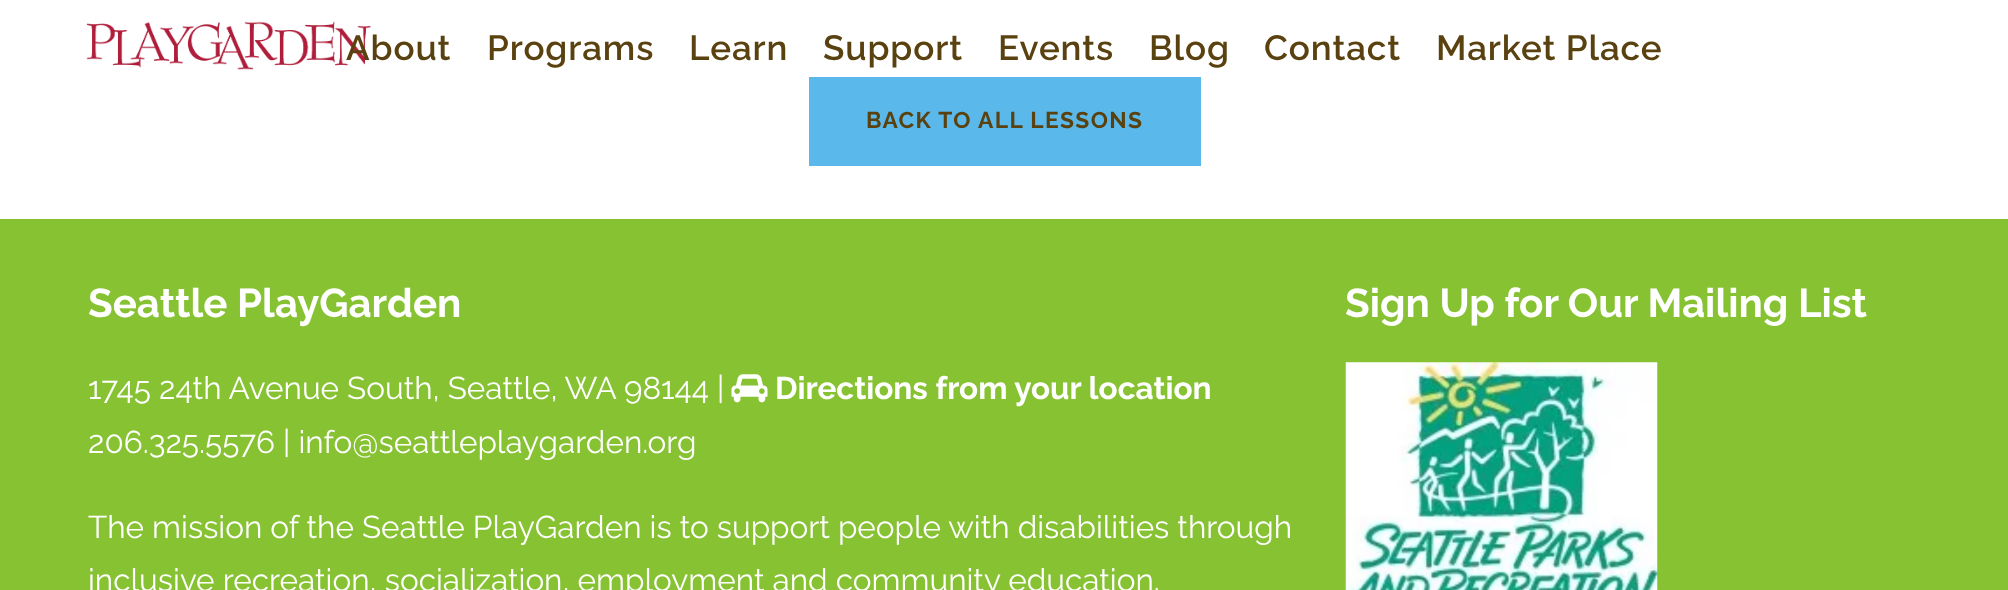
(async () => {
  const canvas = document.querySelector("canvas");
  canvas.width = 2008;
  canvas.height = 590;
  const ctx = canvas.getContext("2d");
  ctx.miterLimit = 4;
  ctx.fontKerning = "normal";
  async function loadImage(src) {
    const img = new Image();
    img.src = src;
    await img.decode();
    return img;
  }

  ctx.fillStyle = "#ffffff";
  ctx.fillRect(0, 0, 2008, 590);
  ctx.drawImage(await loadImage("img/1.png"), 86, 21, 285, 49);
  ctx.fillStyle = "#5ab9ea";
  ctx.fillRect(809, 77, 392, 89);
  ctx.fillStyle = "#86c232";
  ctx.fillRect(0, 219, 2008, 371);
  ctx.drawImage(await loadImage("img/2.png"), 731, 374, 37, 29);
  ctx.drawImage(await loadImage("img/3.png"), 1345, 362, 313, 228);
  ctx.letterSpacing = "0.9px";
  ctx.font = "600 35px Raleway";
  ctx.fillStyle = "#5a4110";
  for (const [text, x, y] of [
    ["About", 346, 60],
    ["Programs", 487, 60],
    ["Learn", 689, 60],
    ["Support", 823, 60],
    ["Events", 998, 60],
    ["Blog", 1149, 60],
    ["Contact", 1264, 60],
    ["Market Place", 1436, 60],
  ]) {
    ctx.fillText(text, x, y);
  }
  ctx.letterSpacing = "1.4px";
  ctx.font = "bold 22.75px Raleway";
  ctx.fillText("BACK TO ALL LESSONS", 866, 128);
  ctx.letterSpacing = "0px";
  ctx.font = "bold 40.25px Raleway";
  ctx.fillStyle = "#ffffff";
  ctx.fillText("Seattle PlayGarden", 88, 317);
  ctx.font = "31.5px Raleway";
  ctx.fillText("1745 24th Avenue South, Seattle, WA 98144 |", 88, 399);
  ctx.font = "bold 31.5px Raleway";
  ctx.fillText("Directions from your location", 775, 399);
  ctx.font = "31.5px Raleway";
  for (const [text, x, y] of [
    ["206.325.5576 | info@seattleplaygarden.org", 88, 453],
    ["The mission of the Seattle PlayGarden is to support people with disabilities through", 88, 538],
    ["inclusive recreation, socialization, employment and community education.", 88, 591],
  ]) {
    ctx.fillText(text, x, y);
  }
  ctx.font = "bold 40.25px Raleway";
  ctx.fillText("Sign Up for Our Mailing List", 1345, 317);
})();
